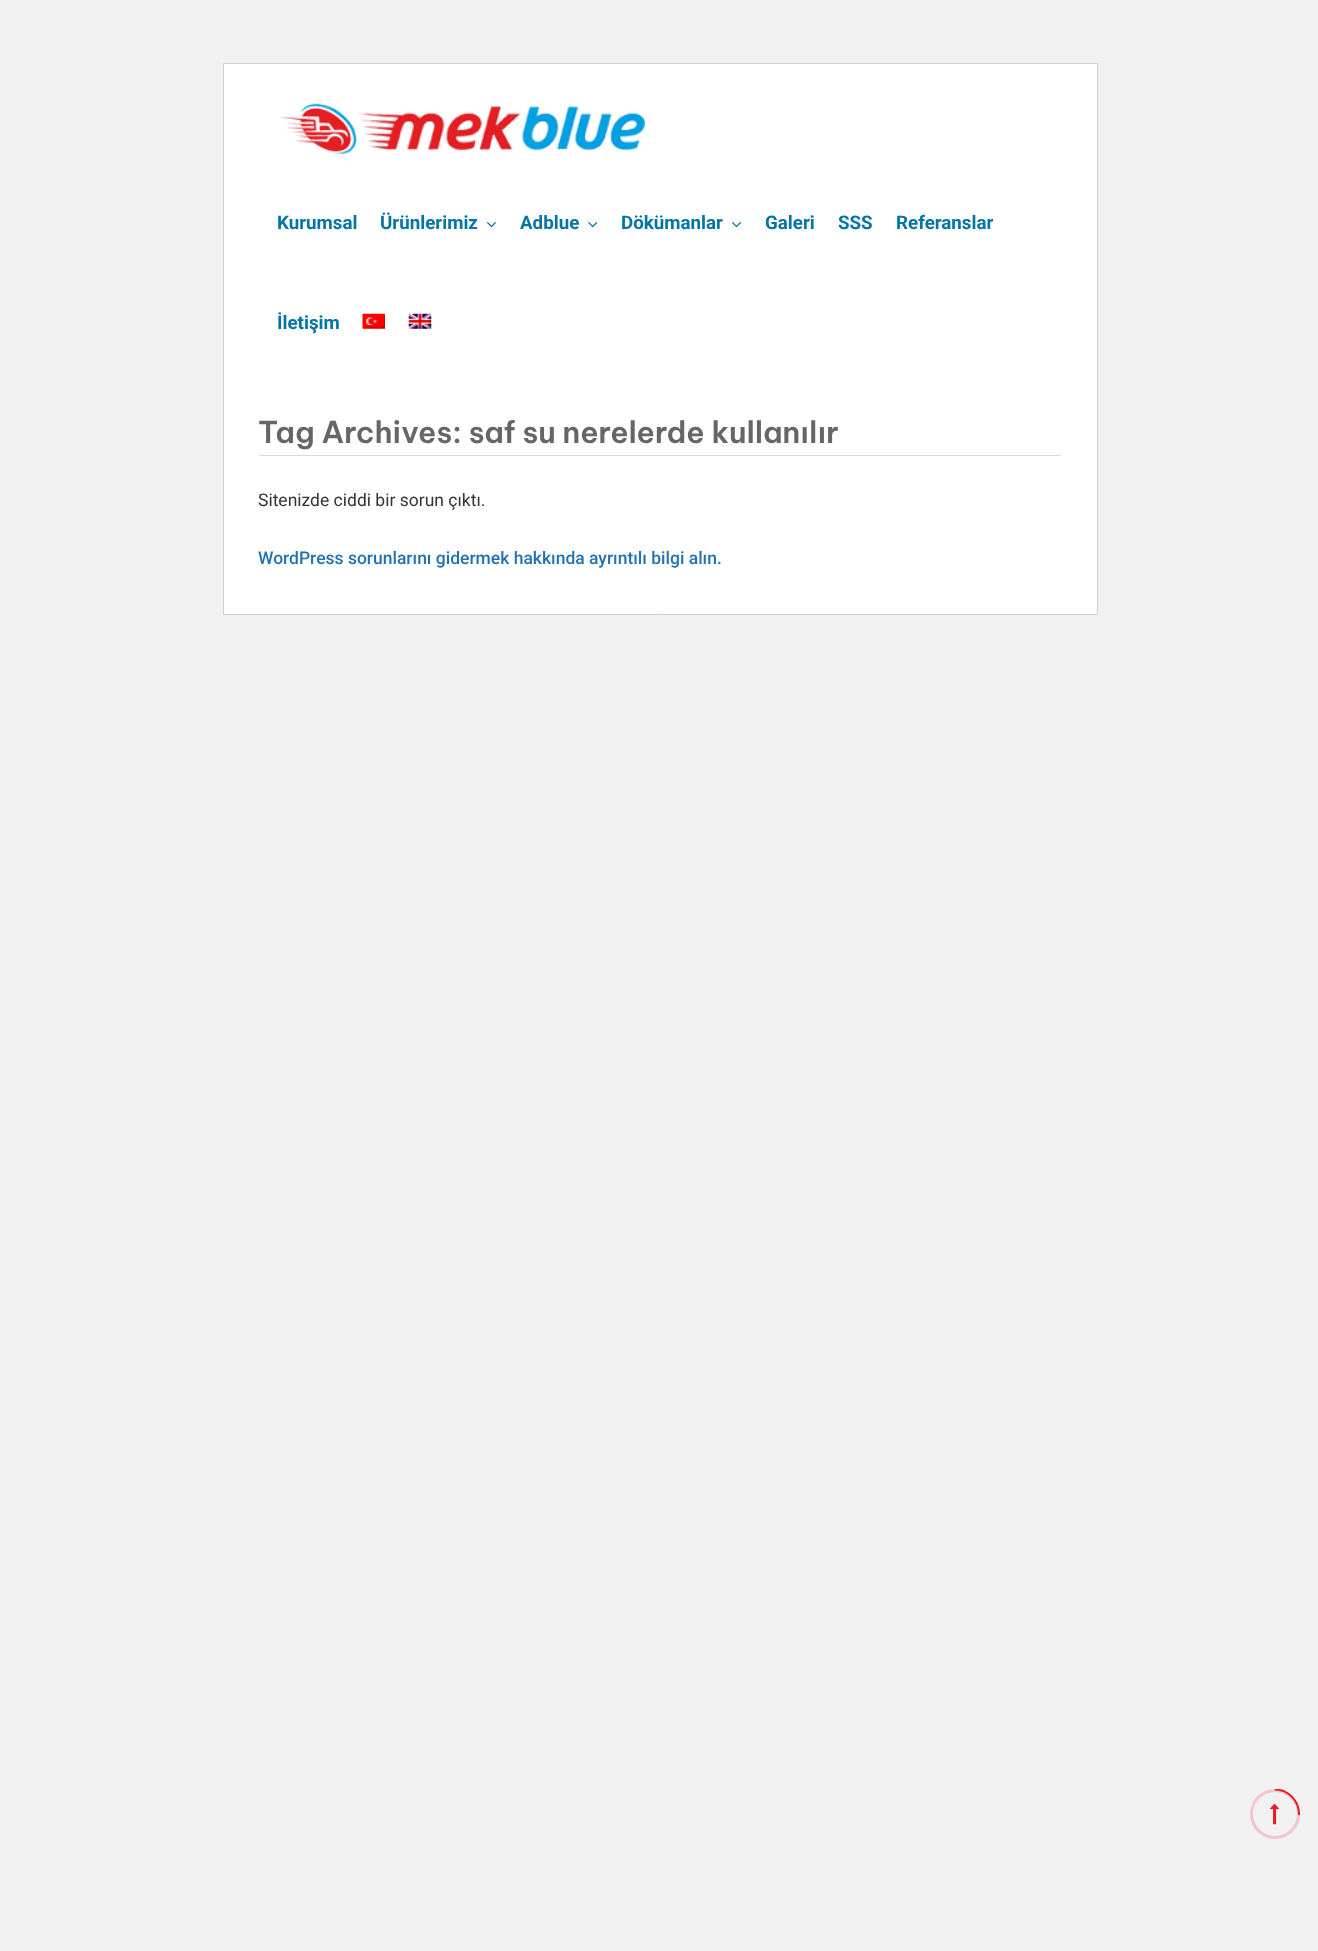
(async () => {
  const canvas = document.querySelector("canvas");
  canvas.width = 1318;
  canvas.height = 1951;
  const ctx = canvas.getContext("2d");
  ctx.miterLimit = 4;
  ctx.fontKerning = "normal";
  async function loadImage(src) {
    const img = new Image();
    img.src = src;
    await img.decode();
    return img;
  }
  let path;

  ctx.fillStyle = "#f1f1f1";
  ctx.fillRect(0, 0, 1318, 1951);
  ctx.fillStyle = "#ffffff";
  ctx.beginPath();
  ctx.rect(223.5, 63.5, 874, 551);
  ctx.fill();
  ctx.strokeStyle = "#ccd0d4";
  ctx.stroke();
  ctx.drawImage(await loadImage("img/1.png"), 279, 103, 367, 51);
  ctx.drawImage(await loadImage("img/2.png"), 487, 222, 9, 6);
  ctx.drawImage(await loadImage("img/3.png"), 588, 222, 10, 6);
  ctx.drawImage(await loadImage("img/2.png"), 732, 222, 9, 6);
  ctx.drawImage(await loadImage("img/4.png"), 362, 313, 23, 16);
  ctx.drawImage(await loadImage("img/5.png"), 408, 313, 24, 16);
  ctx.fillStyle = "#dadada";
  ctx.fillRect(259, 455, 802, 1);
  ctx.beginPath();
  ctx.arc(1275, 1814, 23.5, 0, Math.PI * 2);
  ctx.strokeStyle = "#f4c5cf";
  ctx.lineWidth = 3;
  ctx.stroke();
  ctx.save();
  ctx.beginPath();
  ctx.rect(1250, 1789, 50, 50);
  ctx.clip();
  path = new Path2D("M1275 1789.5C1288.5 1789.5 1299.5 1801.5 1299 1815");
  ctx.strokeStyle = "#e41e26";
  ctx.lineWidth = 2;
  ctx.stroke(path);
  ctx.restore();
  ctx.drawImage(await loadImage("img/6.png"), 1270, 1803, 9, 22);
  ctx.font = "bold 18.75px Roboto";
  ctx.fillStyle = "#0274a5";
  for (const [text, x, y] of [
    ["Kurumsal", 277, 229],
    ["Ürünlerimiz", 380, 229],
    ["Adblue", 520, 229],
    ["Dökümanlar", 621, 229],
    ["Galeri", 765, 229],
    ["SSS", 838, 229],
    ["Referanslar", 896, 229],
    ["İletişim", 277, 329],
  ]) {
    ctx.fillText(text, x, y);
  }
  ctx.font = "600 30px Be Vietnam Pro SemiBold";
  ctx.fillStyle = "#666666";
  ctx.fillText("Tag Archives: saf su nerelerde kullanılır", 258, 443);
  ctx.font = "17.5px Roboto";
  ctx.fillStyle = "#343434";
  ctx.fillText("Sitenizde ciddi bir sorun çıktı.", 258, 506);
  ctx.font = "500 17.5px Roboto";
  ctx.fillStyle = "#2271b1";
  ctx.fillText("WordPress sorunlarını gidermek hakkında ayrıntılı bilgi alın.", 258, 564);
})();
